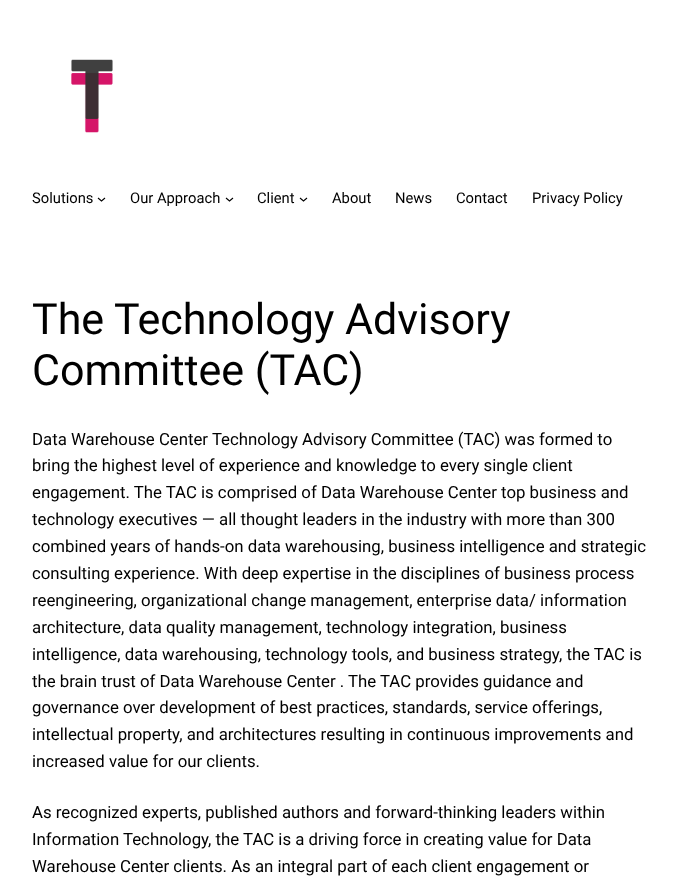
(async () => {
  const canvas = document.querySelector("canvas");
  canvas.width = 681;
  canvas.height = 885;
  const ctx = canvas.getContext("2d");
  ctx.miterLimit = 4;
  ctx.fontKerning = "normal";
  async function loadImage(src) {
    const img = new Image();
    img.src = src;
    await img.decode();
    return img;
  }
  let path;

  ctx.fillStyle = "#ffffff";
  ctx.fillRect(0, 0, 681, 885);
  ctx.drawImage(await loadImage("img/1.png"), 71, 59, 42, 74);
  path = new Path2D("M98 198L101.5 201L105 198");
  ctx.strokeStyle = "#000000";
  ctx.lineWidth = 1.1;
  ctx.stroke(path);
  path = new Path2D("M226 198L229.5 201L233 198");
  ctx.stroke(path);
  path = new Path2D("M300 198L303.5 201L307 198");
  ctx.stroke(path);
  ctx.font = "14.75px Roboto";
  ctx.fillStyle = "#000000";
  for (const [text, x, y] of [
    ["Solutions", 32, 203],
    ["Our Approach", 130, 203],
    ["Client", 257, 203],
    ["About", 332, 203],
    ["News", 395, 203],
    ["Contact", 456, 203],
    ["Privacy Policy", 532, 203],
  ]) {
    ctx.fillText(text, x, y);
  }
  ctx.font = "43px Roboto";
  ctx.fillText("The Technology Advisory", 32, 334);
  ctx.fillText("Committee (TAC)", 32, 385);
  ctx.font = "16.8px Roboto";
  for (const [text, x, y] of [
    ["Data Warehouse Center Technology Advisory Committee (TAC) was formed to", 32, 445],
    ["bring the highest level of experience and knowledge to every single client", 32, 471],
    ["engagement. The TAC is comprised of Data Warehouse Center top business and", 32, 498],
    ["technology executives — all thought leaders in the industry with more than 300", 32, 525],
    ["combined years of hands-on data warehousing, business intelligence and strategic", 32, 552],
    ["consulting experience. With deep expertise in the disciplines of business process", 32, 579],
    ["reengineering, organizational change management, enterprise data/ information", 32, 606],
    ["architecture, data quality management, technology integration, business", 32, 633],
    ["intelligence, data warehousing, technology tools, and business strategy, the TAC is", 32, 660],
    ["the brain trust of Data Warehouse Center . The TAC provides guidance and", 32, 687],
    ["governance over development of best practices, standards, service offerings,", 32, 713],
    ["intellectual property, and architectures resulting in continuous improvements and", 32, 740],
    ["increased value for our clients.", 32, 767],
    ["As recognized experts, published authors and forward-thinking leaders within", 32, 818],
    ["Information Technology, the TAC is a driving force in creating value for Data", 32, 845],
    ["Warehouse Center clients. As an integral part of each client engagement or", 32, 872],
  ]) {
    ctx.fillText(text, x, y);
  }
})();
